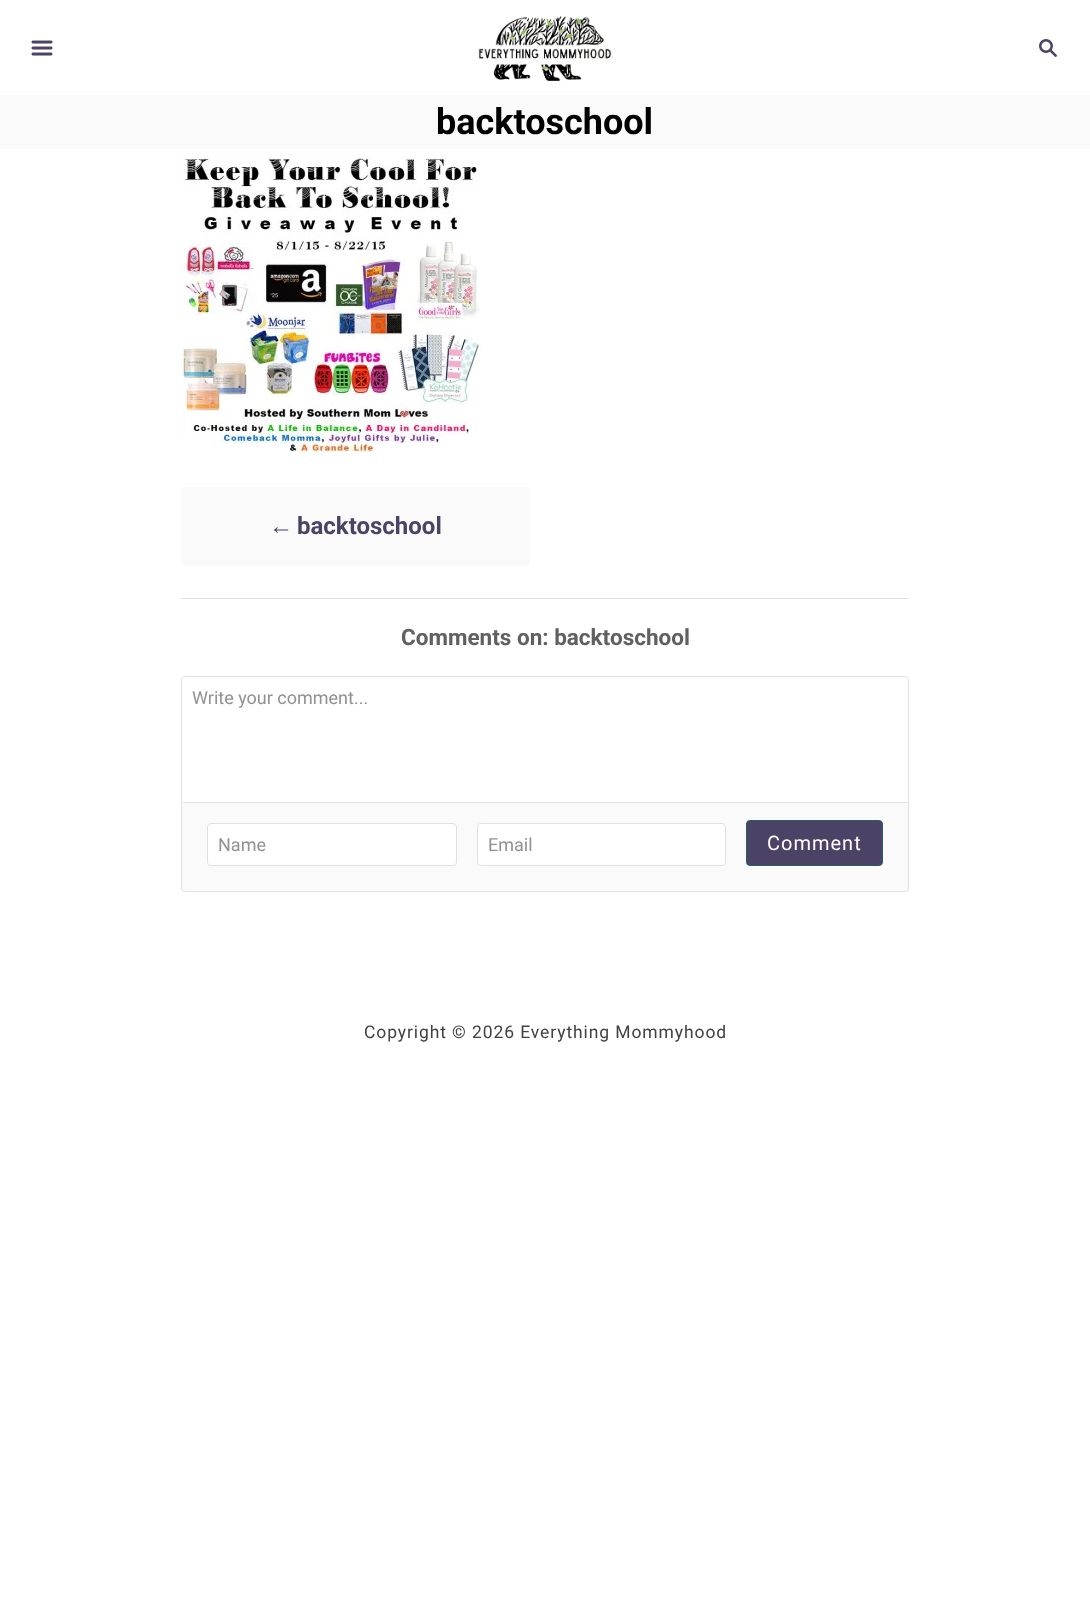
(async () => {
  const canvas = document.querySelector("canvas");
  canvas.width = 1090;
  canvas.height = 1611;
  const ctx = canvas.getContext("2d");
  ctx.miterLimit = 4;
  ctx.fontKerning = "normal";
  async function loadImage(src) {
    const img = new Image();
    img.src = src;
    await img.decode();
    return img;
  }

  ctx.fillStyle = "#ffffff";
  ctx.fillRect(0, 0, 1090, 1611);
  ctx.drawImage(await loadImage("img/1.png"), 31, 40, 22, 16);
  ctx.drawImage(await loadImage("img/2.png"), 478, 16, 134, 66);
  ctx.drawImage(await loadImage("img/3.png"), 1039, 39, 18, 18);
  ctx.fillStyle = "#fafafa";
  ctx.fillRect(0, 95, 1090, 54);
  ctx.drawImage(await loadImage("img/4.png"), 181, 155, 300, 297);
  ctx.beginPath();
  ctx.roundRect(181, 487, 349, 79, 4);
  ctx.fill();
  ctx.fillStyle = "#e1e1e1";
  ctx.fillRect(181, 598, 728, 1);
  ctx.fillStyle = "#fafafa";
  ctx.beginPath();
  ctx.roundRect(181.5, 794.5, 727, 97, [0, 0, 3.5, 3.5]);
  ctx.fill();
  ctx.strokeStyle = "#e1e1e1";
  ctx.stroke();
  ctx.fillStyle = "#ffffff";
  ctx.beginPath();
  ctx.roundRect(181.5, 676.5, 727, 126, [3.5, 3.5, 0, 0]);
  ctx.fill();
  ctx.stroke();
  ctx.beginPath();
  ctx.roundRect(207.5, 823.5, 249, 42, 3.5);
  ctx.fill();
  ctx.stroke();
  ctx.beginPath();
  ctx.roundRect(477.5, 823.5, 248, 42, 3.5);
  ctx.fill();
  ctx.stroke();
  ctx.fillStyle = "#4b4266";
  ctx.beginPath();
  ctx.roundRect(746.5, 820.5, 136, 45, 3.5);
  ctx.fill();
  ctx.strokeStyle = "#275f62";
  ctx.stroke();
  ctx.font = "bold 36px Roboto";
  ctx.fillStyle = "#000000";
  ctx.fillText("backtoschool", 436, 134);
  ctx.font = "bold 24px Liberation Sans";
  ctx.fillStyle = "#4b4266";
  ctx.fillText("←", 269, 534);
  ctx.font = "bold 24px Roboto";
  ctx.fillText("backtoschool", 297, 534);
  ctx.font = "bold 22.5px Roboto";
  ctx.fillStyle = "#606060";
  ctx.fillText("Comments on: backtoschool", 401, 645);
  ctx.font = "18px Roboto";
  ctx.fillStyle = "#919191";
  for (const [text, x, y] of [
    ["Write your comment...", 192, 704],
    ["Name", 218, 851],
    ["Email", 488, 851],
  ]) {
    ctx.fillText(text, x, y);
  }
  ctx.letterSpacing = "1px";
  ctx.font = "20px Roboto";
  ctx.fillStyle = "#ffffff";
  ctx.fillText("Comment", 767, 850);
  ctx.letterSpacing = "0.9px";
  ctx.font = "17.5px Roboto";
  ctx.fillStyle = "#414141";
  ctx.fillText("Copyright © 2026 Everything Mommyhood", 364, 1038);
})();
